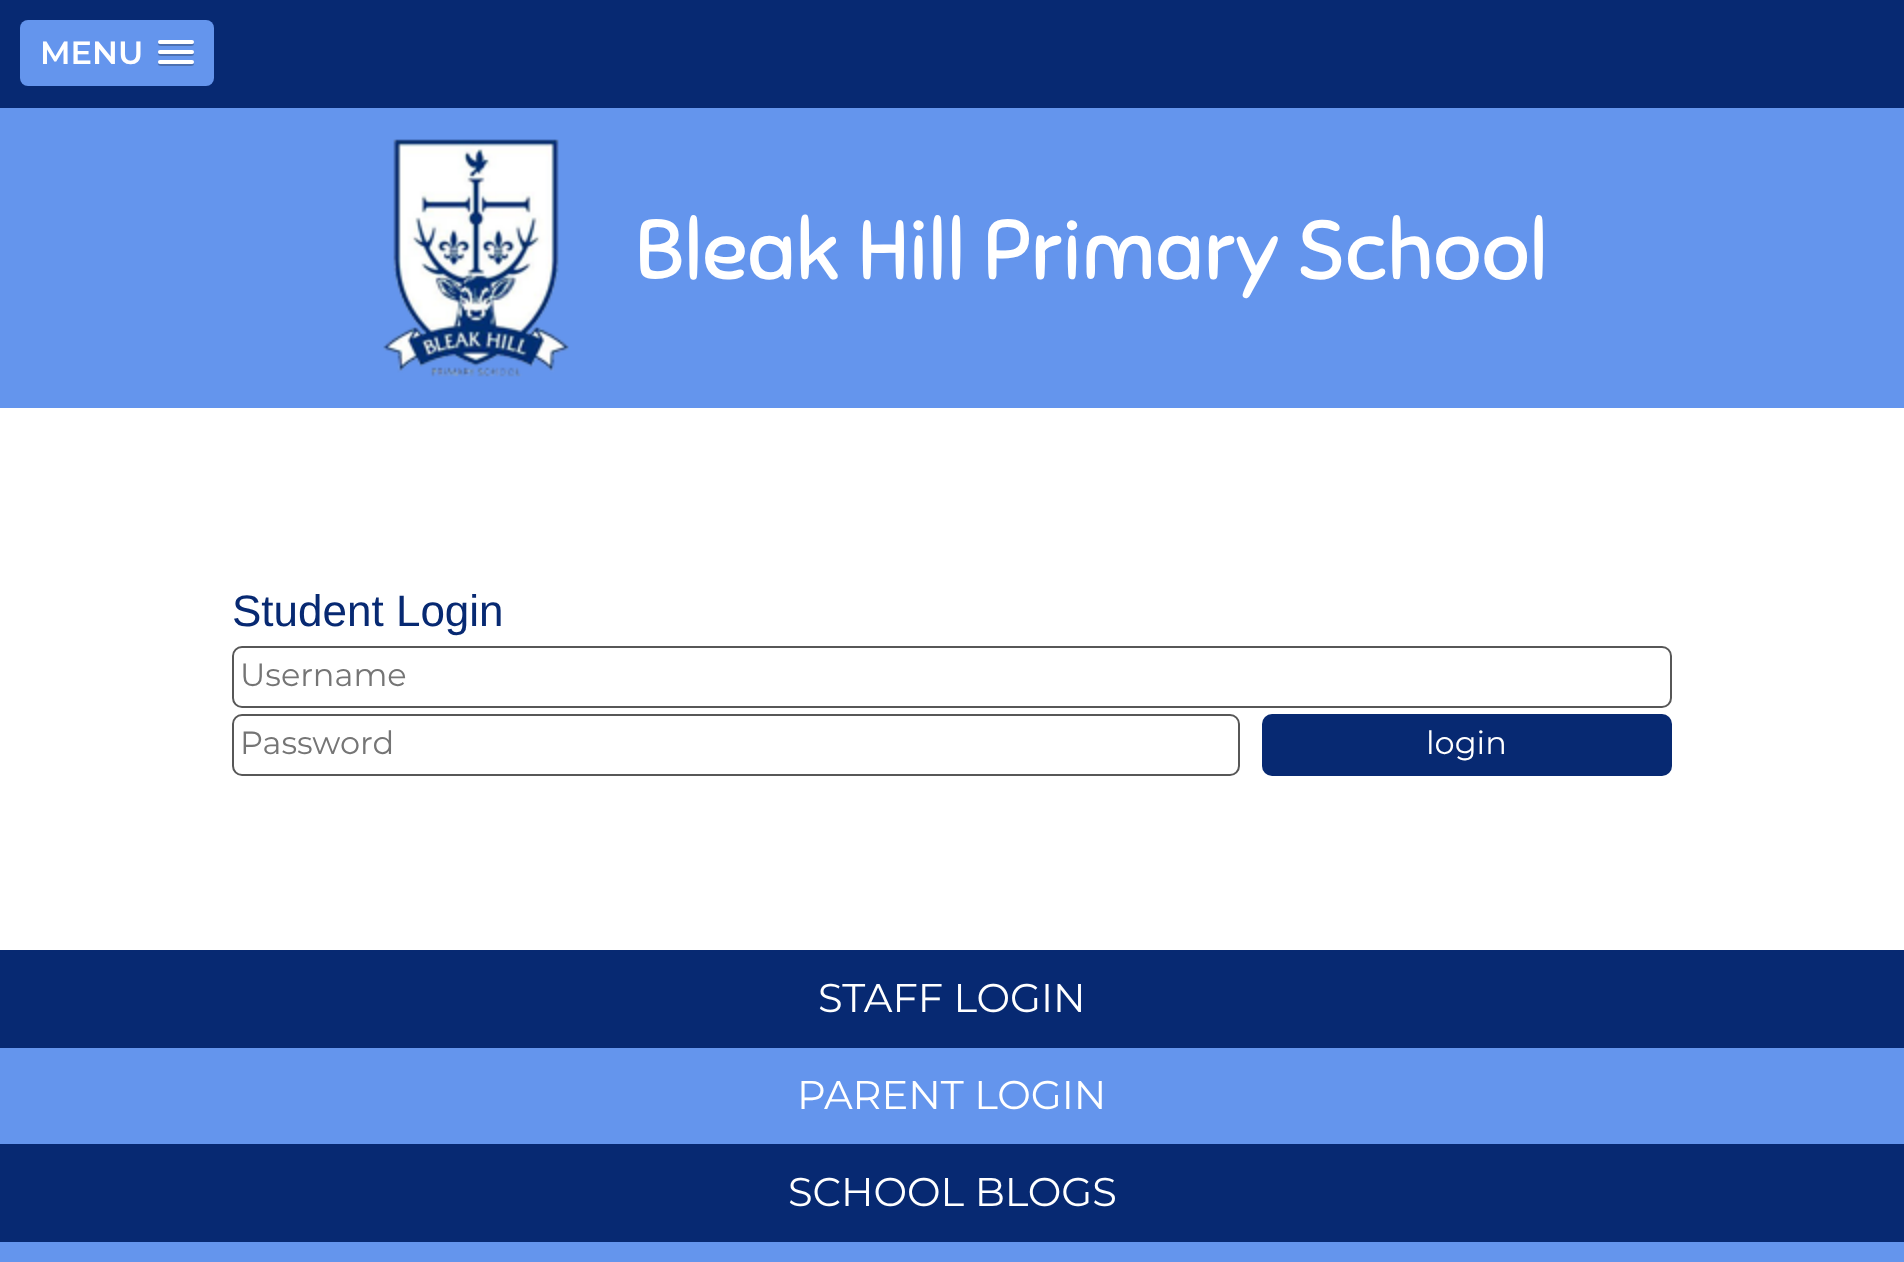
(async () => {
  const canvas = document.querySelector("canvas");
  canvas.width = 1904;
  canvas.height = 1262;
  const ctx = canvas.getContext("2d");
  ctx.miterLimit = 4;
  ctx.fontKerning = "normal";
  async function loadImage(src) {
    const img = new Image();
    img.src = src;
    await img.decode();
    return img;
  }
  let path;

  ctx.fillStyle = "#ffffff";
  ctx.fillRect(0, 0, 1904, 1262);
  ctx.fillStyle = "#072972";
  ctx.fillRect(0, 0, 1904, 108);
  ctx.fillStyle = "#6495ed";
  ctx.beginPath();
  ctx.roundRect(20, 20, 194, 66, 8);
  ctx.fill();
  ctx.fillStyle = "#4b70b2";
  path = new Path2D("M158.5 43C156 47 165 46 165.5 46H186.5C187 46 196 47 193.5 43C193.5 43.5 192.5 44 192 44H160C159.5 44 158.5 43.5 158.5 43Z");
  ctx.fill(path);
  ctx.fillStyle = "#ffffff";
  ctx.beginPath();
  ctx.roundRect(158, 40, 36, 4, 2);
  ctx.fill();
  ctx.fillStyle = "#4b70b2";
  path = new Path2D("M158.5 53C156 57 165 56 165.5 56H186.5C187 56 196 57 193.5 53C193.5 53.5 192.5 54 192 54H160C159.5 54 158.5 53.5 158.5 53Z");
  ctx.fill(path);
  ctx.fillStyle = "#ffffff";
  ctx.beginPath();
  ctx.roundRect(158, 50, 36, 4, 2);
  ctx.fill();
  ctx.fillStyle = "#4b70b2";
  path = new Path2D("M158.5 63C156 67 165 66 165.5 66H186.5C187 66 196 67 193.5 63C193.5 63.5 192.5 64 192 64H160C159.5 64 158.5 63.5 158.5 63Z");
  ctx.fill(path);
  ctx.fillStyle = "#ffffff";
  ctx.beginPath();
  ctx.roundRect(158, 60, 36, 4, 2);
  ctx.fill();
  ctx.fillStyle = "#6495ed";
  ctx.fillRect(0, 108, 1904, 300);
  ctx.drawImage(await loadImage("img/1.png"), 383, 139, 186, 238);
  ctx.beginPath();
  ctx.roundRect(233, 647, 1438, 60, 9);
  ctx.strokeStyle = "#575757";
  ctx.lineWidth = 2;
  ctx.stroke();
  ctx.beginPath();
  ctx.roundRect(233, 715, 1006, 60, 9);
  ctx.stroke();
  ctx.fillStyle = "#072972";
  ctx.beginPath();
  ctx.roundRect(1262, 714, 410, 62, 10);
  ctx.fill();
  for (const [x, y, w, h, color] of [
    [0, 950, 1904, 98, "#072972"],
    [0, 1048, 1904, 96, "#6495ed"],
    [0, 1144, 1904, 98, "#072972"],
    [0, 1242, 1904, 20, "#6495ed"],
  ]) {
    ctx.fillStyle = color;
    ctx.fillRect(x, y, w, h);
  }
  ctx.font = "600 32px Montserrat";
  ctx.fillStyle = "#ffffff";
  ctx.fillText("MENU", 40, 64);
  ctx.font = "84px Sniglet";
  ctx.fillText("Bleak Hill Primary School", 635, 279);
  ctx.font = "44px Liberation Sans";
  ctx.fillStyle = "#072972";
  ctx.fillText("Student Login", 232, 626);
  ctx.font = "32px Montserrat";
  ctx.fillStyle = "#757575";
  ctx.fillText("Username", 240, 686);
  ctx.fillText("Password", 240, 754);
  ctx.fillStyle = "#ffffff";
  ctx.fillText("login", 1426, 754);
  ctx.font = "40px Montserrat";
  for (const [text, x, y] of [
    ["STAFF LOGIN", 818, 1012],
    ["PARENT LOGIN", 797, 1109],
    ["SCHOOL BLOGS", 788, 1206],
  ]) {
    ctx.fillText(text, x, y);
  }
})();
